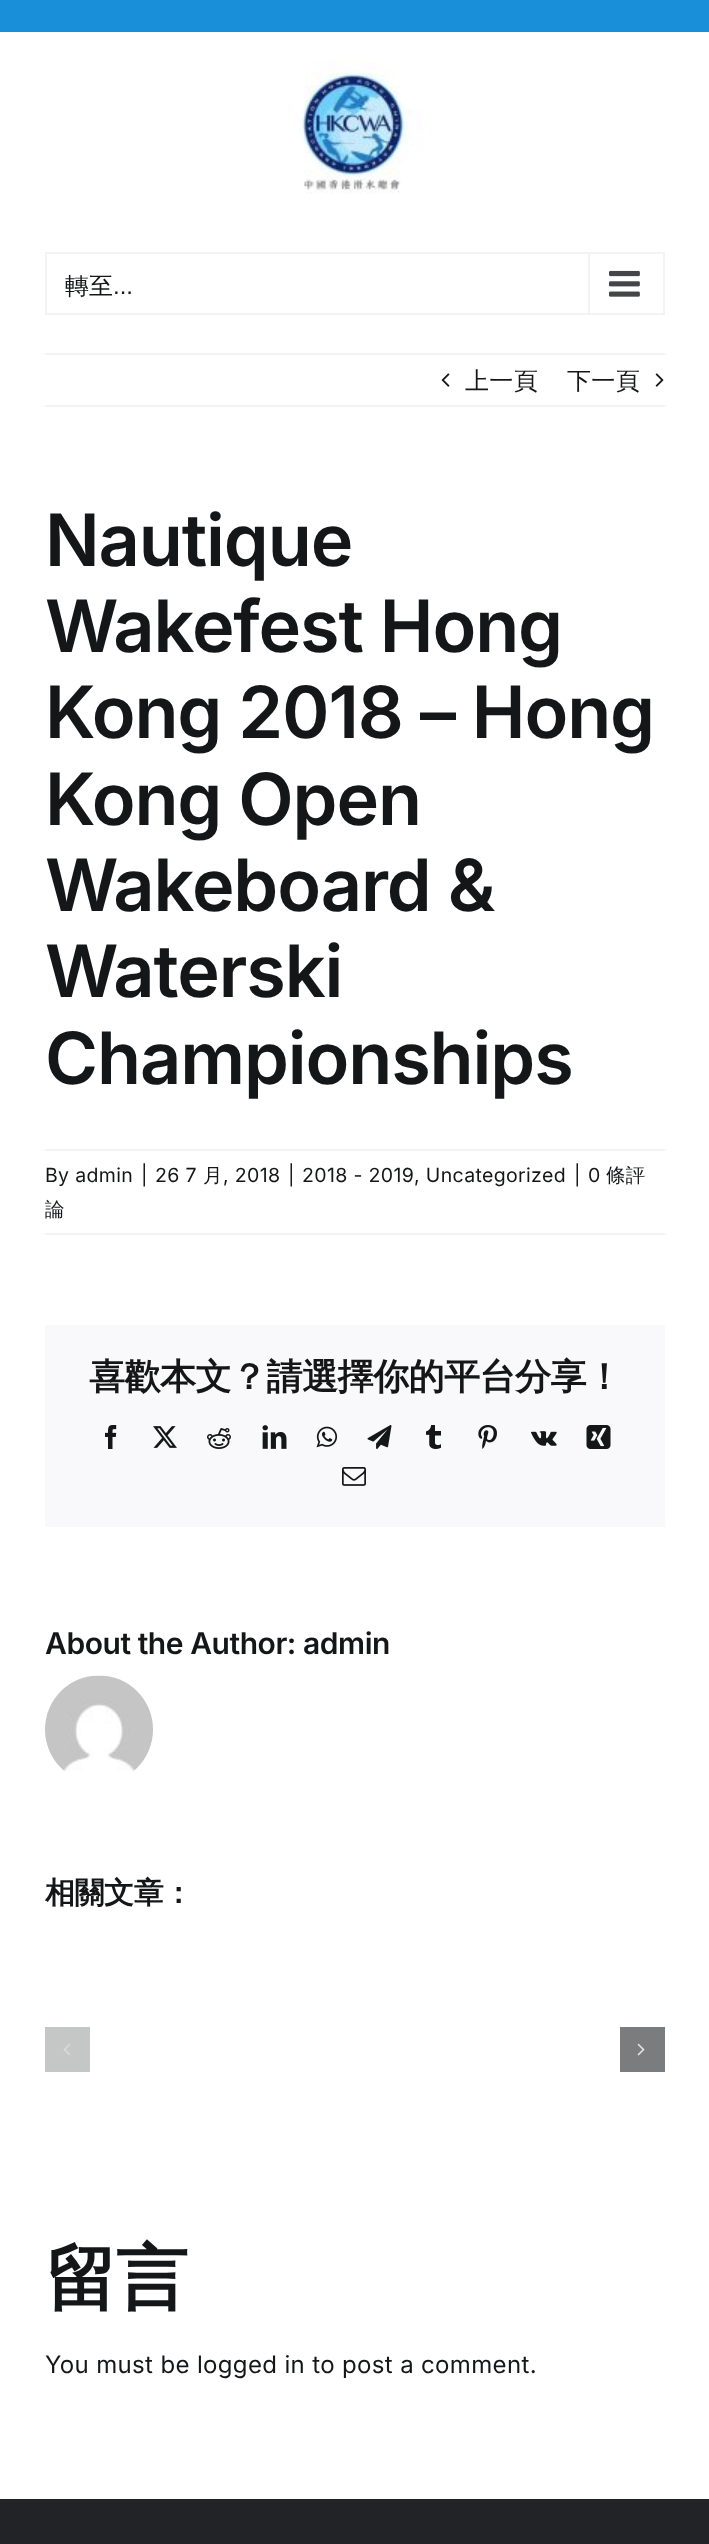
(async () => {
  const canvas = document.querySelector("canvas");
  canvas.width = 709;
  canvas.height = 2544;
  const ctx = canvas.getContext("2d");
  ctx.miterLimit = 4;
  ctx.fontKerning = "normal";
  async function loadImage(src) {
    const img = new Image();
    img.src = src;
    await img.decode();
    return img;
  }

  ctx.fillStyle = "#ffffff";
  ctx.fillRect(0, 0, 709, 2544);
  ctx.fillStyle = "#198fd9";
  ctx.fillRect(0, 0, 709, 32);
  ctx.drawImage(await loadImage("img/1.png"), 299, 61, 126, 133);
  ctx.strokeStyle = "#f2f3f5";
  ctx.lineWidth = 2;
  ctx.strokeRect(46, 253, 618, 61);
  ctx.fillStyle = "#f2f3f5";
  ctx.fillRect(588, 254, 2, 60);
  ctx.drawImage(await loadImage("img/2.png"), 609, 270, 31, 27);
  ctx.fillRect(45, 353, 620, 2);
  ctx.fillRect(45, 405, 620, 2);
  ctx.drawImage(await loadImage("img/3.png"), 441, 373, 9, 14);
  ctx.drawImage(await loadImage("img/4.png"), 655, 373, 9, 14);
  for (const [x, y, w, h, color] of [
    [45, 1149, 620, 2, "#f2f3f5"],
    [45, 1233, 620, 2, "#f2f3f5"],
    [45, 1325, 620, 202, "#f9f9fb"],
  ]) {
    ctx.fillStyle = color;
    ctx.fillRect(x, y, w, h);
  }
  ctx.drawImage(await loadImage("img/5.png"), 105, 1425, 12, 24);
  ctx.drawImage(await loadImage("img/6.png"), 153, 1426, 24, 22);
  ctx.drawImage(await loadImage("img/7.png"), 207, 1428, 24, 21);
  ctx.drawImage(await loadImage("img/8.png"), 262, 1425, 25, 24);
  ctx.drawImage(await loadImage("img/9.png"), 316, 1426, 22, 22);
  ctx.drawImage(await loadImage("img/10.png"), 367, 1425, 25, 24);
  ctx.drawImage(await loadImage("img/11.png"), 426, 1425, 15, 24);
  ctx.drawImage(await loadImage("img/12.png"), 478, 1425, 19, 24);
  ctx.drawImage(await loadImage("img/13.png"), 531, 1431, 26, 15);
  ctx.drawImage(await loadImage("img/14.png"), 586, 1425, 25, 24);
  ctx.drawImage(await loadImage("img/15.png"), 342, 1467, 24, 19);
  ctx.drawImage(await loadImage("img/16.png"), 45, 1675, 108, 96);
  ctx.fillStyle = "#c5c6c6";
  ctx.fillRect(45, 2027, 45, 45);
  ctx.drawImage(await loadImage("img/17.png"), 63, 2044, 8, 12);
  ctx.fillStyle = "#7b7c7d";
  ctx.fillRect(620, 2027, 45, 45);
  ctx.drawImage(await loadImage("img/18.png"), 637, 2043, 8, 13);
  ctx.fillStyle = "#212326";
  ctx.fillRect(0, 2499, 709, 45);
  ctx.font = "500 24px WenQuanYi Zen Hei";
  ctx.fillStyle = "#141617";
  ctx.fillText("轉至", 65, 294);
  ctx.font = "24px Liberation Sans";
  ctx.fillText("...", 113, 294);
  ctx.letterSpacing = "0.35px";
  ctx.font = "500 24px WenQuanYi Zen Hei";
  ctx.fillText("上一頁", 465, 389);
  ctx.fillText("下一頁", 567, 389);
  ctx.letterSpacing = "-1.1px";
  ctx.font = "600 72px Inter";
  for (const [text, x, y] of [
    ["Nautique", 45, 566],
    ["Wakefest Hong", 45, 652],
    ["Kong 2018 – Hong", 45, 738],
    ["Kong Open", 45, 825],
    ["Wakeboard &", 45, 911],
    ["Waterski", 45, 997],
    ["Championships", 45, 1084],
  ]) {
    ctx.fillText(text, x, y);
  }
  ctx.letterSpacing = "0.35px";
  ctx.font = "19.5px Inter";
  for (const [text, x, y] of [
    ["By admin", 45, 1182],
    ["|", 141, 1182],
    ["26 7", 155, 1182],
  ]) {
    ctx.fillText(text, x, y);
  }
  ctx.font = "500 19.5px WenQuanYi Zen Hei";
  ctx.fillText("月", 203, 1182);
  ctx.font = "19.5px Inter";
  for (const [text, x, y] of [
    [", 2018", 223, 1182],
    ["|", 288, 1182],
    ["2018 - 2019", 302, 1182],
    [", Uncategorized", 414, 1182],
    ["|", 574, 1182],
    ["0", 588, 1182],
  ]) {
    ctx.fillText(text, x, y);
  }
  ctx.font = "500 19.5px WenQuanYi Zen Hei";
  ctx.fillText("條評", 606, 1182);
  ctx.fillText("論", 45, 1216);
  ctx.letterSpacing = "-0.5px";
  ctx.font = "bold 36px WenQuanYi Zen Hei";
  ctx.fillText("喜歡本文？請選擇你的平台分享！", 89, 1389);
  ctx.letterSpacing = "-0.45px";
  ctx.font = "600 30px Inter";
  ctx.fillText("About the Author: admin", 45, 1654);
  ctx.font = "bold 30px WenQuanYi Zen Hei";
  ctx.fillText("相關文章：", 45, 1903);
  ctx.letterSpacing = "-1.1px";
  ctx.font = "bold 72px WenQuanYi Zen Hei";
  ctx.fillText("留言", 45, 2303);
  ctx.letterSpacing = "0.35px";
  ctx.font = "24px Inter";
  ctx.fillText("You must be logged in to post a comment.", 45, 2373);
})();
